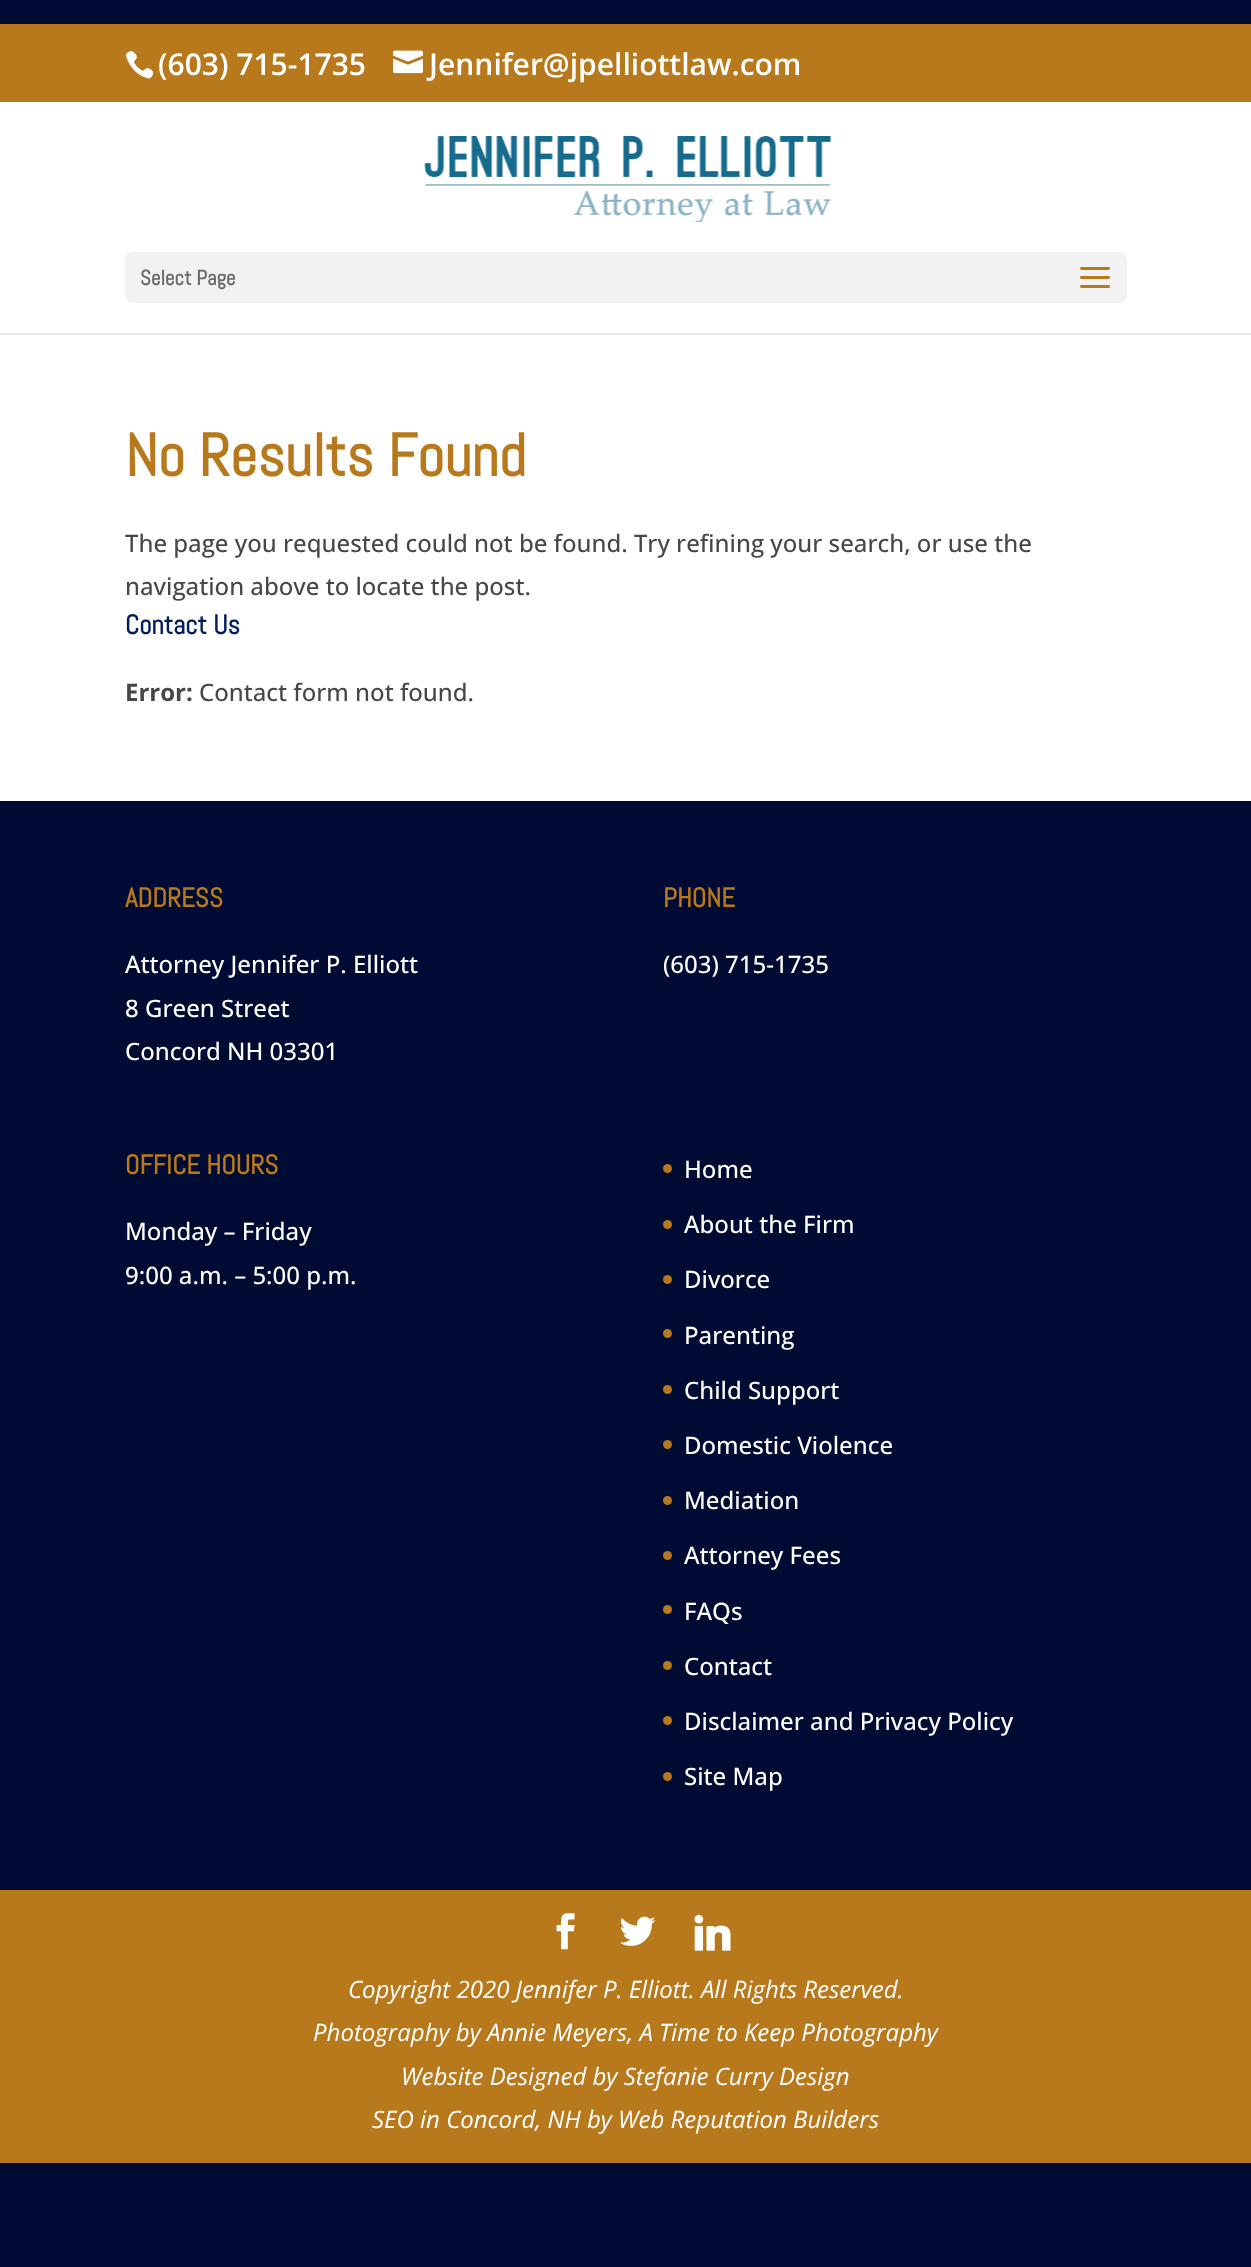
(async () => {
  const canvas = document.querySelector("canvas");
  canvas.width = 1251;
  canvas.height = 2267;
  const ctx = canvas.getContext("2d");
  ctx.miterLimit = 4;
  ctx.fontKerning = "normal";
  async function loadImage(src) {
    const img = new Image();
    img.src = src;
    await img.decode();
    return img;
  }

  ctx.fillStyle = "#000b33";
  ctx.fillRect(0, 0, 1251, 2267);
  ctx.fillStyle = "#b7791b";
  ctx.fillRect(0, 24, 1251, 78);
  ctx.drawImage(await loadImage("img/1.png"), 125, 51, 29, 28);
  ctx.drawImage(await loadImage("img/2.png"), 393, 50, 30, 24);
  ctx.fillStyle = "#e6e6e6";
  ctx.fillRect(0, 333, 1251, 2);
  ctx.fillStyle = "#ffffff";
  ctx.fillRect(0, 102, 1251, 231);
  ctx.drawImage(await loadImage("img/3.png"), 424, 135, 408, 87);
  ctx.fillStyle = "#f2f2f2";
  ctx.beginPath();
  ctx.roundRect(125, 252, 1002, 51, 8);
  ctx.fill();
  ctx.drawImage(await loadImage("img/4.png"), 1080, 267, 30, 21);
  ctx.fillStyle = "#ffffff";
  ctx.fillRect(0, 335, 1251, 466);
  ctx.fillStyle = "#b7791b";
  ctx.beginPath();
  ctx.arc(667.5, 1168.5, 4.5, 0, Math.PI * 2);
  ctx.fill();
  ctx.beginPath();
  ctx.arc(667.5, 1224.5, 4.5, 0, Math.PI * 2);
  ctx.fill();
  ctx.beginPath();
  ctx.arc(667.5, 1279.5, 4.5, 0, Math.PI * 2);
  ctx.fill();
  ctx.beginPath();
  ctx.arc(667.5, 1333.5, 4.5, 0, Math.PI * 2);
  ctx.fill();
  ctx.beginPath();
  ctx.arc(667.5, 1389.5, 4.5, 0, Math.PI * 2);
  ctx.fill();
  ctx.beginPath();
  ctx.arc(667.5, 1444.5, 4.5, 0, Math.PI * 2);
  ctx.fill();
  ctx.beginPath();
  ctx.arc(667.5, 1500.5, 4.5, 0, Math.PI * 2);
  ctx.fill();
  ctx.beginPath();
  ctx.arc(667.5, 1555.5, 4.5, 0, Math.PI * 2);
  ctx.fill();
  ctx.beginPath();
  ctx.arc(667.5, 1609.5, 4.5, 0, Math.PI * 2);
  ctx.fill();
  ctx.beginPath();
  ctx.arc(667.5, 1665.5, 4.5, 0, Math.PI * 2);
  ctx.fill();
  ctx.beginPath();
  ctx.arc(667.5, 1720.5, 4.5, 0, Math.PI * 2);
  ctx.fill();
  ctx.beginPath();
  ctx.arc(667.5, 1776.5, 4.5, 0, Math.PI * 2);
  ctx.fill();
  ctx.fillRect(0, 1890, 1251, 273);
  ctx.drawImage(await loadImage("img/5.png"), 556, 1913, 19, 37);
  ctx.drawImage(await loadImage("img/6.png"), 619, 1916, 37, 30);
  ctx.drawImage(await loadImage("img/7.png"), 694, 1914, 37, 37);
  ctx.font = "600 30px Open Sans";
  ctx.fillStyle = "#ffffff";
  ctx.fillText("(603) 715-1735", 158, 75);
  ctx.fillText("Jennifer@jpelliottlaw.com", 429, 75);
  ctx.font = "bold 21px Abel";
  ctx.fillStyle = "#666666";
  ctx.fillText("Select Page", 140, 285);
  ctx.font = "bold 60px Abel";
  ctx.fillStyle = "#b7791b";
  ctx.fillText("No Results Found", 125, 476);
  ctx.font = "500 24px Open Sans";
  ctx.fillStyle = "#474747";
  ctx.fillText("The page you requested could not be found. Try refining your search, or use the", 125, 552);
  ctx.fillText("navigation above to locate the post.", 125, 595);
  ctx.font = "bold 27px Abel";
  ctx.fillStyle = "#001d60";
  ctx.fillText("Contact Us", 125, 634);
  ctx.font = "bold 24px Open Sans";
  ctx.fillStyle = "#474747";
  ctx.fillText("Error:", 125, 701);
  ctx.font = "500 24px Open Sans";
  ctx.fillText("Contact form not found.", 199, 701);
  ctx.font = "bold 27px Abel";
  ctx.fillStyle = "#b7791b";
  ctx.fillText("ADDRESS", 125, 907);
  ctx.font = "500 24px Open Sans";
  ctx.fillStyle = "#ffffff";
  for (const [text, x, y] of [
    ["Attorney Jennifer P. Elliott", 125, 973],
    ["8 Green Street", 125, 1017],
    ["Concord NH 03301", 125, 1060],
  ]) {
    ctx.fillText(text, x, y);
  }
  ctx.font = "bold 27px Abel";
  ctx.fillStyle = "#b7791b";
  ctx.fillText("PHONE", 663, 907);
  ctx.font = "500 24px Open Sans";
  ctx.fillStyle = "#ffffff";
  ctx.fillText("(603) 715-1735", 663, 973);
  ctx.font = "bold 27px Abel";
  ctx.fillStyle = "#b7791b";
  ctx.fillText("OFFICE HOURS", 125, 1174);
  ctx.font = "500 24px Open Sans";
  ctx.fillStyle = "#ffffff";
  for (const [text, x, y] of [
    ["Monday – Friday", 125, 1240],
    ["9:00 a.m. – 5:00 p.m.", 125, 1284],
    ["Home", 684, 1178],
    ["About the Firm", 684, 1233],
    ["Divorce", 684, 1288],
    ["Parenting", 684, 1344],
    ["Child Support", 684, 1399],
    ["Domestic Violence", 684, 1454],
    ["Mediation", 684, 1509],
    ["Attorney Fees", 684, 1564],
    ["FAQs", 684, 1620],
    ["Contact", 684, 1675],
    ["Disclaimer and Privacy Policy", 684, 1730],
    ["Site Map", 684, 1785],
  ]) {
    ctx.fillText(text, x, y);
  }
  ctx.font = "italic 24px Open Sans";
  for (const [text, x, y] of [
    ["Copyright 2020 Jennifer P. Elliott. All Rights Reserved.", 348, 1998],
    ["Photography by Annie Meyers, A Time to Keep Photography", 313, 2041],
    ["Website Designed by Stefanie Curry Design", 401, 2085],
    ["SEO in Concord, NH by Web Reputation Builders", 372, 2128],
  ]) {
    ctx.fillText(text, x, y);
  }
})();
